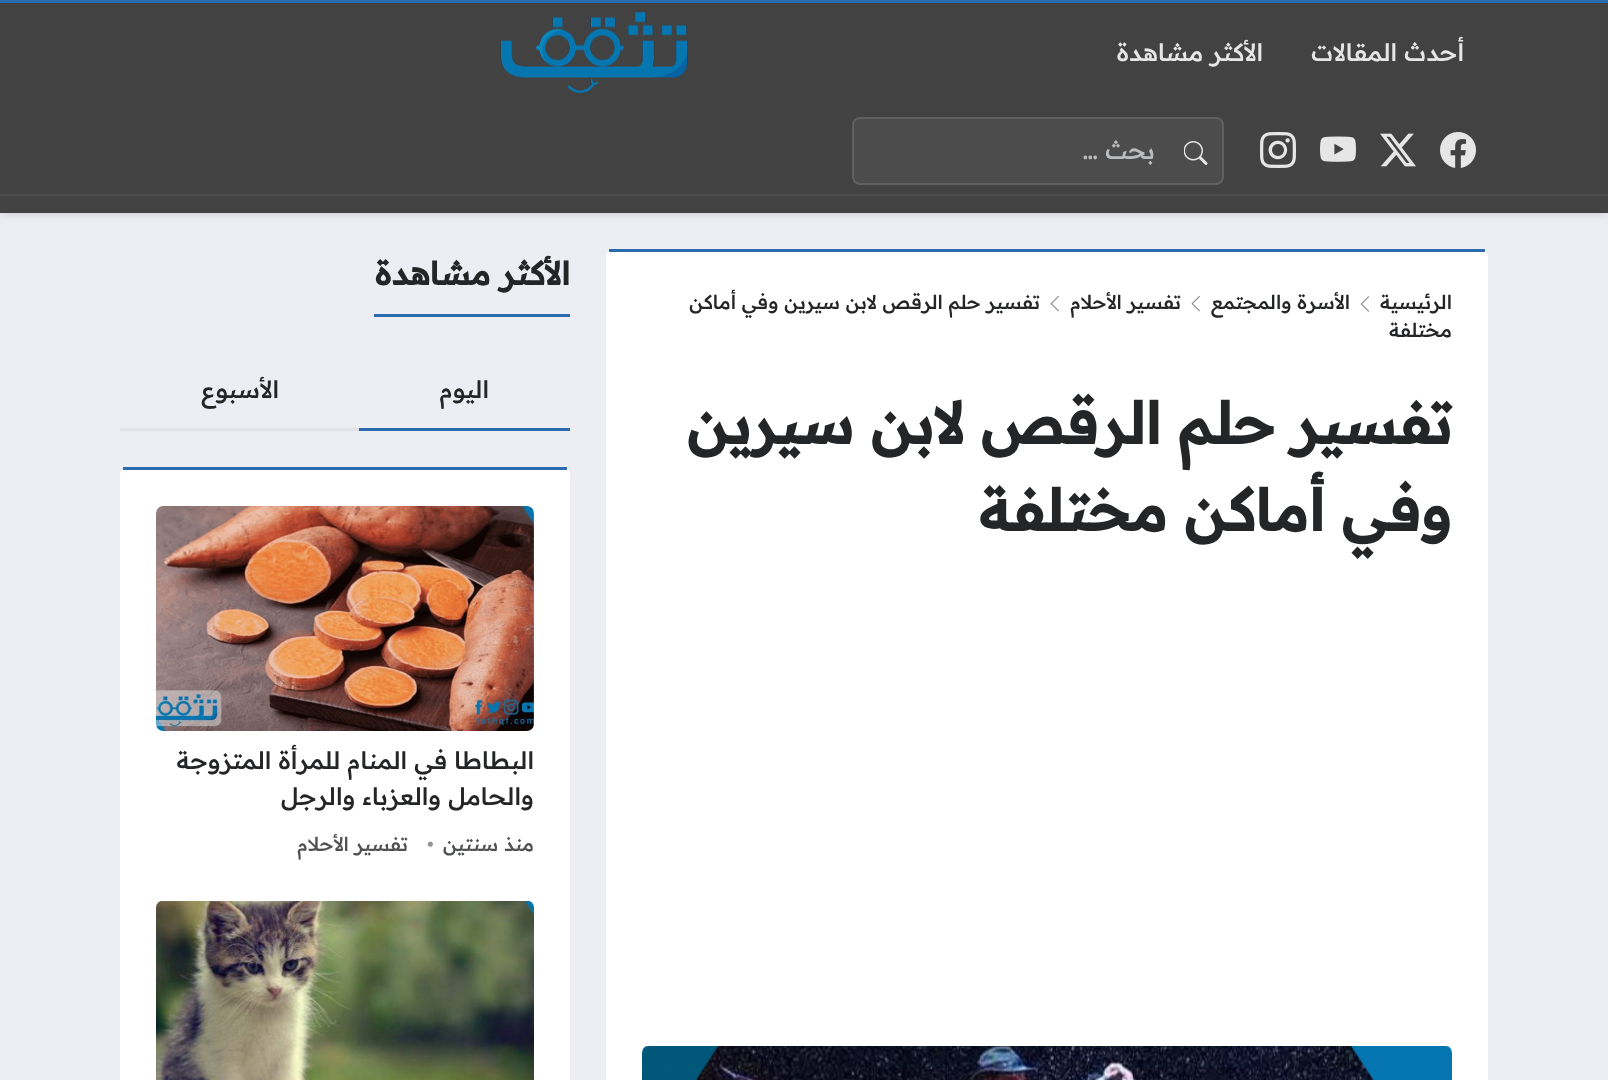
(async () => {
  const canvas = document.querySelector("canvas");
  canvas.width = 1608;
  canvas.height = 1080;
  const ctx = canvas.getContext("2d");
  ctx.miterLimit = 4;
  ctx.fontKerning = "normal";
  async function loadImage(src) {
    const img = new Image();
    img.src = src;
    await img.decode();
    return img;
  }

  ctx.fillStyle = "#edeef3";
  ctx.fillRect(0, 0, 1608, 1080);
  ctx.fillStyle = "#c3c3c3";
  ctx.filter = "blur(4px)";
  ctx.beginPath();
  ctx.rect(0, 0, 1608, 213);
  ctx.fill();
  ctx.filter = "none";
  ctx.fillStyle = "#2b6cb0";
  ctx.fillRect(0, 0, 1608, 3);
  ctx.fillStyle = "#424242";
  ctx.fillRect(0, 3, 1608, 191);
  ctx.drawImage(await loadImage("img/1.png"), 500, 12, 188, 81);
  ctx.drawImage(await loadImage("img/2.png"), 1440, 132, 36, 36);
  ctx.drawImage(await loadImage("img/3.png"), 1380, 133, 36, 34);
  ctx.drawImage(await loadImage("img/4.png"), 1320, 136, 36, 26);
  ctx.drawImage(await loadImage("img/5.png"), 1260, 132, 36, 36);
  ctx.fillStyle = "#4c4c4c";
  ctx.beginPath();
  ctx.roundRect(853, 118, 370, 66, 7);
  ctx.fill();
  ctx.strokeStyle = "#606060";
  ctx.lineWidth = 2;
  ctx.stroke();
  ctx.drawImage(await loadImage("img/6.png"), 1184, 141, 24, 24);
  ctx.fillStyle = "#424242";
  ctx.fillRect(0, 196, 1608, 17);
  ctx.fillStyle = "#4c4c4c";
  ctx.fillRect(0, 194, 1608, 2);
  ctx.fillStyle = "#ffffff";
  ctx.beginPath();
  ctx.roundRect(606, 249, 882, 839, 8);
  ctx.fill();
  ctx.fillStyle = "#2b6cb0";
  ctx.fillRect(609, 249, 876, 3);
  ctx.drawImage(await loadImage("img/7.png"), 1360, 296, 10, 16);
  ctx.drawImage(await loadImage("img/8.png"), 1191, 295, 9, 17);
  ctx.drawImage(await loadImage("img/8.png"), 1050, 295, 9, 17);
  ctx.drawImage(await loadImage("img/9.png"), 642, 1046, 810, 34);
  for (const [x, y, w, h, color] of [
    [374, 314, 196, 3, "#2b6cb0"],
    [120, 428, 239, 3, "#e2e3e7"],
    [359, 428, 211, 3, "#2b6cb0"],
  ]) {
    ctx.fillStyle = color;
    ctx.fillRect(x, y, w, h);
  }
  ctx.fillStyle = "#ffffff";
  ctx.beginPath();
  ctx.roundRect(120, 467, 450, 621, 8);
  ctx.fill();
  ctx.fillStyle = "#2b6cb0";
  ctx.fillRect(123, 467, 444, 3);
  ctx.drawImage(await loadImage("img/10.png"), 156, 506, 378, 225);
  ctx.drawImage(await loadImage("img/11.png"), 156, 901, 378, 179);
  ctx.direction = "rtl";
  ctx.font = "500 24px Readex Pro";
  ctx.fillStyle = "#e6e6e6";
  ctx.fillText("أحدث المقالات", 1464, 61);
  ctx.fillText("الأكثر مشاهدة", 1263, 61);
  ctx.fillStyle = "#babdc0";
  ctx.fillText("بحث …", 1155, 159);
  ctx.font = "500 19.25px Readex Pro";
  ctx.fillStyle = "#242526";
  for (const [text, x, y] of [
    ["الرئيسية", 1452, 309],
    ["الأسرة والمجتمع", 1350, 309],
    ["تفسير الأحلام", 1181, 309],
    ["تفسير حلم الرقص لابن سيرين وفي أماكن", 1040, 309],
    ["مختلفة", 1452, 337],
  ]) {
    ctx.fillText(text, x, y);
  }
  ctx.font = "bold 57.6px Readex Pro";
  ctx.fillText("تفسير حلم الرقص لابن سيرين", 1452, 444);
  ctx.fillText("وفي أماكن مختلفة", 1452, 531);
  ctx.font = "bold 32px Readex Pro";
  ctx.fillText("الأكثر مشاهدة", 570, 285);
  ctx.font = "500 24px Readex Pro";
  for (const [text, x, y] of [
    ["اليوم", 489, 398],
    ["الأسبوع", 279, 398],
    ["البطاطا في المنام للمرأة المتزوجة", 534, 769],
    ["والحامل والعزباء والرجل", 534, 805],
  ]) {
    ctx.fillText(text, x, y);
  }
  ctx.font = "500 19.25px Readex Pro";
  ctx.fillStyle = "#505151";
  ctx.fillText("منذ سنتين", 534, 851);
  ctx.direction = "ltr";
  ctx.fillStyle = "#969697";
  ctx.fillText("•", 427, 851);
  ctx.direction = "rtl";
  ctx.fillStyle = "#505151";
  ctx.fillText("تفسير الأحلام", 408, 851);
})();
